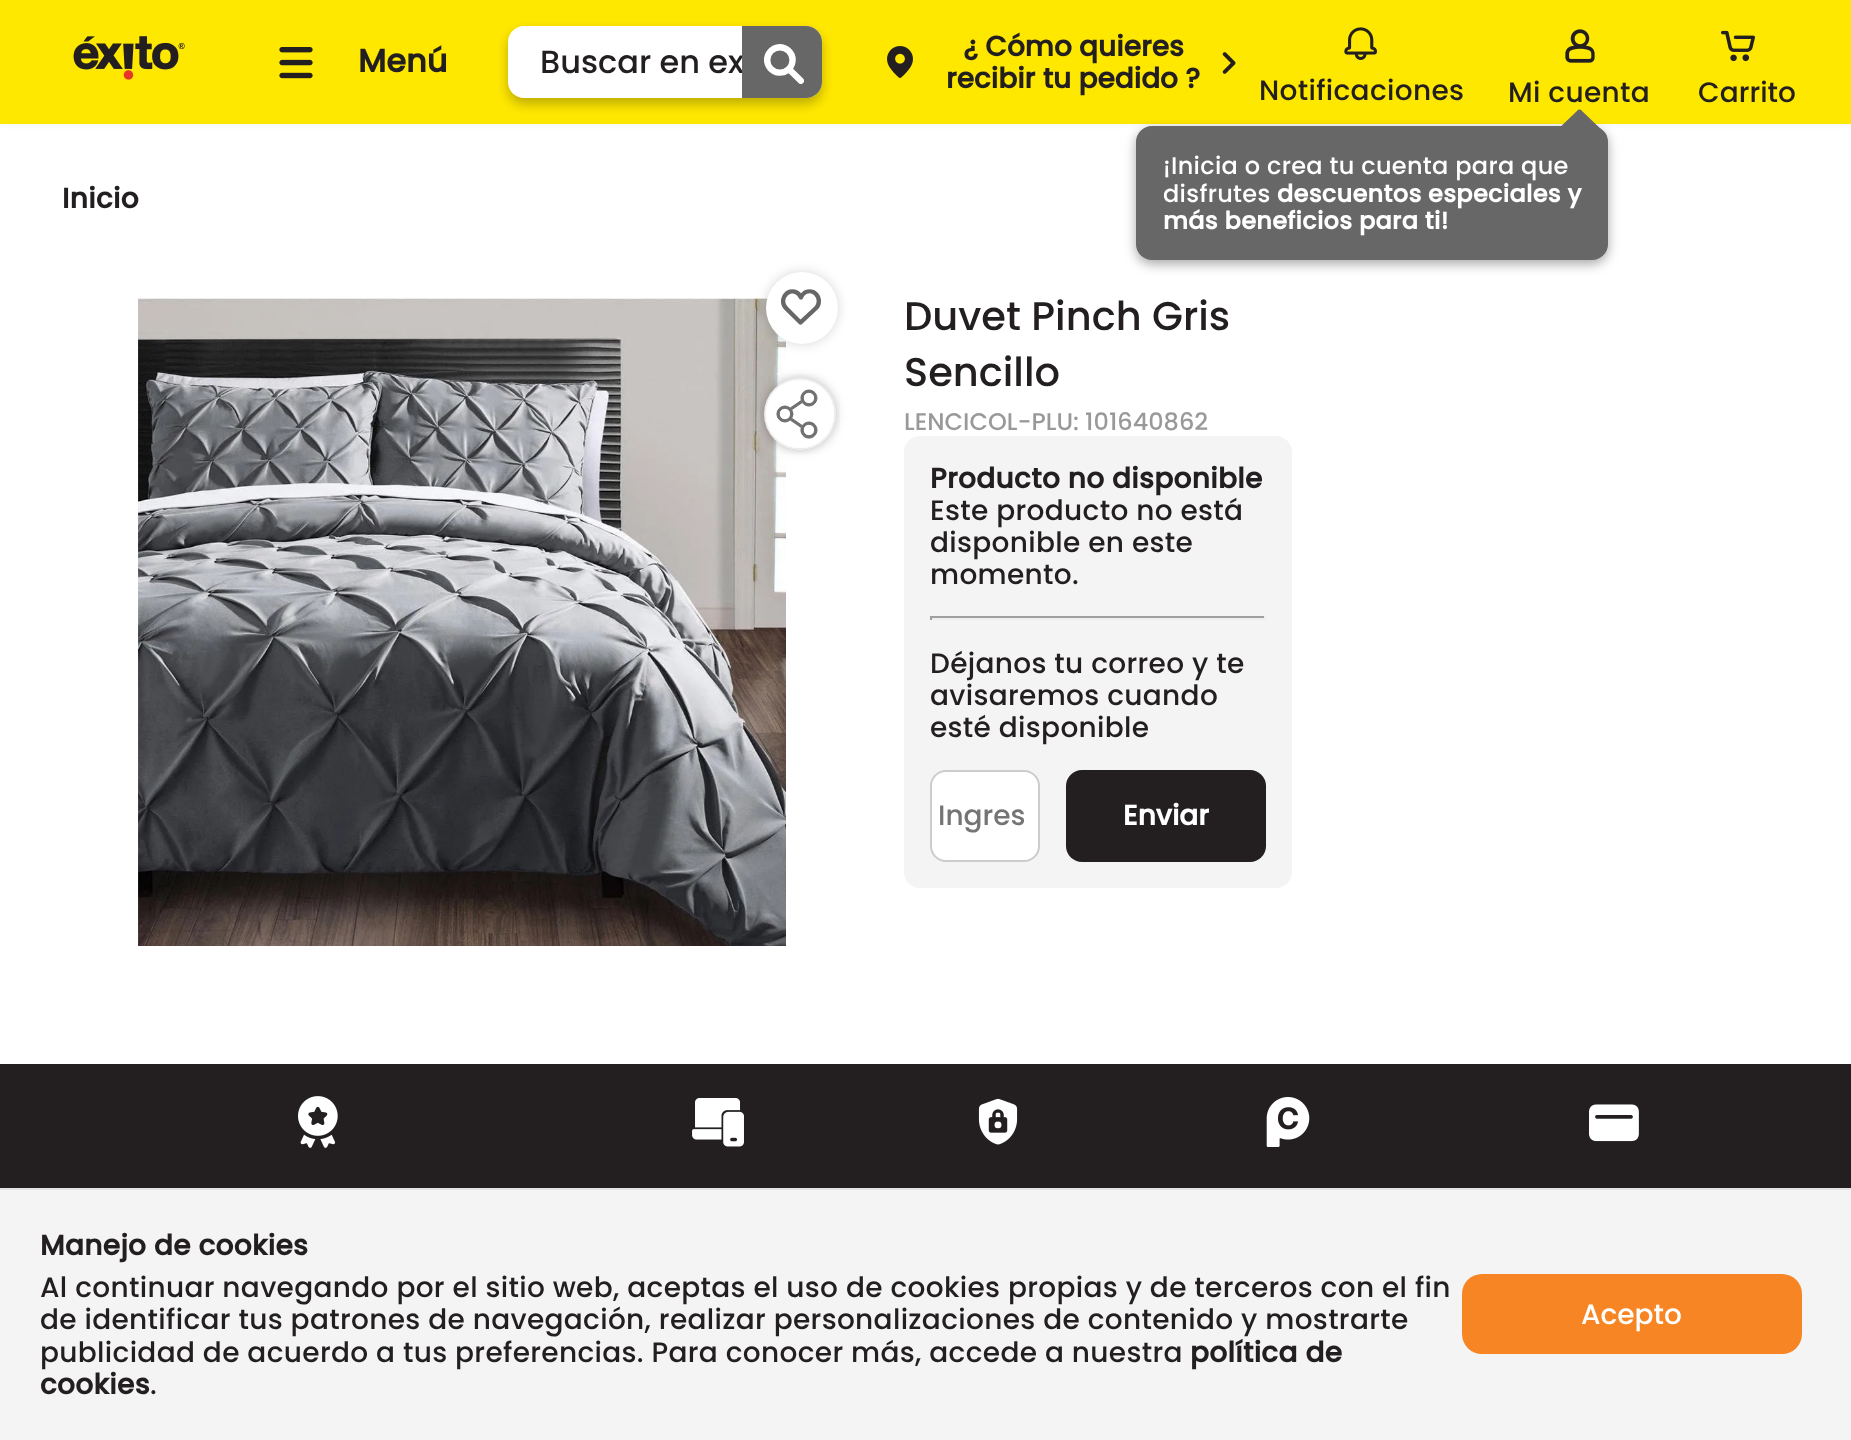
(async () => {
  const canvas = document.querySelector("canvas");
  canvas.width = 1851;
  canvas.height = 1440;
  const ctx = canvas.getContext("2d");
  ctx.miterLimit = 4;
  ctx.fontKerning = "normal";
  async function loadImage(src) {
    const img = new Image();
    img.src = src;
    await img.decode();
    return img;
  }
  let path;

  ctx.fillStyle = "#ffffff";
  ctx.fillRect(0, 0, 1851, 1440);
  ctx.fillStyle = "rgba(0, 0, 0, 0.05)";
  ctx.filter = "blur(3px)";
  ctx.beginPath();
  ctx.rect(0, 0, 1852, 124);
  ctx.fill();
  ctx.filter = "none";
  ctx.fillStyle = "#ffe800";
  ctx.fillRect(0, 0, 1851, 124);
  ctx.drawImage(await loadImage("img/1.png"), 73, 36, 112, 44);
  ctx.drawImage(await loadImage("img/2.png"), 279, 47, 34, 32);
  ctx.fillStyle = "#ffffff";
  ctx.beginPath();
  ctx.roundRect(508, 26, 314, 72, 16);
  ctx.fill();
  ctx.save();
  path = new Path2D("M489 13H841V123H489ZM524 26H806C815 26 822 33 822 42V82C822 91 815 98 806 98H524C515 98 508 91 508 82V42C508 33 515 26 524 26Z");
  ctx.clip(path, "evenodd");
  ctx.fillStyle = "rgba(0, 0, 0, 0.26)";
  ctx.filter = "blur(6px)";
  ctx.beginPath();
  ctx.roundRect(508, 32, 314, 72, 16);
  ctx.fill();
  ctx.filter = "none";
  ctx.restore();
  ctx.drawImage(await loadImage("img/4.png"), 887, 46, 26, 32);
  ctx.drawImage(await loadImage("img/5.png"), 1222, 52, 14, 22);
  ctx.drawImage(await loadImage("img/6.png"), 1344, 27, 33, 33);
  ctx.drawImage(await loadImage("img/7.png"), 1565, 29, 30, 34);
  ctx.fillStyle = "rgba(0, 0, 0, 0.34)";
  ctx.filter = "blur(6px)";
  ctx.beginPath();
  ctx.roundRect(1136, 130, 472, 134, 16);
  ctx.fill();
  ctx.filter = "none";
  ctx.fillStyle = "#676767";
  ctx.beginPath();
  ctx.roundRect(1136, 126, 472, 134, 16);
  ctx.fill();
  ctx.drawImage(await loadImage("img/8.png"), 1721, 30, 34, 32);
  ctx.drawImage(await loadImage("img/9.png"), 138, 298, 648, 648);
  ctx.fillStyle = "rgba(0, 0, 0, 0.16)";
  ctx.filter = "blur(6px)";
  ctx.beginPath();
  ctx.roundRect(766, 272, 72, 72, 36);
  ctx.fill();
  ctx.filter = "none";
  ctx.fillStyle = "#ffffff";
  ctx.beginPath();
  ctx.arc(802, 308, 36, 0, Math.PI * 2);
  ctx.fill();
  ctx.drawImage(await loadImage("img/10.png"), 781, 289, 40, 36);
  ctx.fillStyle = "rgba(0, 0, 0, 0.16)";
  ctx.filter = "blur(6px)";
  ctx.beginPath();
  ctx.roundRect(764, 378, 72, 72, 36);
  ctx.fill();
  ctx.filter = "none";
  ctx.fillStyle = "#ffffff";
  ctx.beginPath();
  ctx.arc(800, 414, 36, 0, Math.PI * 2);
  ctx.fill();
  ctx.drawImage(await loadImage("img/11.png"), 760, 374, 80, 80);
  ctx.fillStyle = "#f4f4f4";
  ctx.beginPath();
  ctx.roundRect(904, 436, 388, 452, 16);
  ctx.fill();
  for (const [x, y, w, h, color] of [
    [930, 616, 336, 2, "#9f9f9f"],
    [1264, 616, 2, 4, "#eeeeee"],
    [930, 618, 336, 2, "#eeeeee"],
    [930, 616, 2, 4, "#9f9f9f"],
  ]) {
    ctx.fillStyle = color;
    ctx.fillRect(x, y, w, h);
  }
  ctx.fillStyle = "#ffffff";
  ctx.beginPath();
  ctx.roundRect(931, 771, 108, 90, 15);
  ctx.fill();
  ctx.strokeStyle = "#cccccc";
  ctx.lineWidth = 2;
  ctx.stroke();
  ctx.fillStyle = "#231f20";
  ctx.beginPath();
  ctx.roundRect(1066, 770, 200, 92, 16);
  ctx.fill();
  ctx.fillRect(0, 1064, 1851, 124);
  ctx.drawImage(await loadImage("img/12.png"), 298, 1096, 40, 52);
  ctx.drawImage(await loadImage("img/13.png"), 692, 1098, 52, 49);
  ctx.drawImage(await loadImage("img/14.png"), 978, 1098, 40, 47);
  ctx.drawImage(await loadImage("img/15.png"), 1266, 1097, 44, 50);
  ctx.drawImage(await loadImage("img/16.png"), 1589, 1104, 50, 38);
  ctx.fillStyle = "#f4f4f4";
  ctx.fillRect(0, 1190, 1851, 250);
  ctx.fillStyle = "#e3e3e3";
  ctx.fillRect(0, 1188, 1851, 2);
  ctx.fillStyle = "#f78524";
  ctx.beginPath();
  ctx.roundRect(1462, 1274, 340, 80, 20);
  ctx.fill();
  ctx.font = "bold 32px Poppins";
  ctx.fillStyle = "#231f20";
  ctx.fillText("Menú", 358, 72);
  ctx.font = "500 32px Poppins";
  ctx.fillText("Buscar en ex", 540, 73);
  ctx.fillStyle = "#676767";
  ctx.beginPath();
  ctx.roundRect(742, 26, 80, 72, [0, 16, 16, 0]);
  ctx.fill();
  ctx.drawImage(await loadImage("img/3.png"), 764, 44, 40, 40);
  ctx.font = "bold 28px Poppins";
  ctx.fillStyle = "#231f20";
  ctx.fillText("¿ Cómo quieres", 963, 56);
  ctx.fillText("recibir tu pedido ?", 946, 88);
  ctx.letterSpacing = "0.32px";
  ctx.font = "500 28px Poppins";
  ctx.fillText("Notificaciones", 1259, 100);
  ctx.fillText("Mi cuenta", 1508, 102);
  ctx.font = "500 24px Poppins";
  ctx.fillStyle = "#ffffff";
  ctx.fillText("¡Inicia o crea tu cuenta para que", 1163, 174);
  ctx.fillStyle = "#676767";
  path = new Path2D("M1582 111L1605 133C1607 135 1607 137 1605 139L1582 162C1581 163 1578 163 1577 162L1554 139C1553 137 1553 135 1554 133L1577 111C1578 109 1581 109 1582 111Z");
  ctx.fill(path);
  ctx.fillStyle = "#ffffff";
  ctx.fillText("disfrutes", 1163, 202);
  ctx.font = "bold 24px Poppins";
  ctx.fillText("descuentos especiales y", 1277, 202);
  ctx.fillText("más beneficios para ti!", 1163, 229);
  ctx.letterSpacing = "0px";
  ctx.font = "500 28px Poppins";
  ctx.fillStyle = "#231f20";
  ctx.fillText("Carrito", 1698, 102);
  ctx.letterSpacing = "0.32px";
  ctx.font = "bold 28px Poppins";
  ctx.fillText("Inicio", 62, 208);
  ctx.letterSpacing = "0px";
  ctx.font = "500 40px Poppins";
  ctx.fillText("Duvet Pinch Gris", 904, 330);
  ctx.fillText("Sencillo", 904, 386);
  ctx.font = "500 24px Poppins";
  ctx.fillStyle = "#999999";
  ctx.fillText("LENCICOL-PLU: 101640862", 904, 430);
  ctx.letterSpacing = "0.32px";
  ctx.font = "bold 28px Poppins";
  ctx.fillStyle = "#231f20";
  ctx.fillText("Producto no disponible", 930, 488);
  ctx.font = "500 28px Poppins";
  for (const [text, x, y] of [
    ["Este producto no está", 930, 520],
    ["disponible en este", 930, 552],
    ["momento.", 930, 584],
    ["Déjanos tu correo y te", 930, 673],
    ["avisaremos cuando", 930, 705],
    ["esté disponible", 930, 737],
  ]) {
    ctx.fillText(text, x, y);
  }
  ctx.letterSpacing = "0px";
  ctx.fillStyle = "#757575";
  ctx.fillText("Ingres", 938, 825);
  ctx.font = "bold 28px Poppins";
  ctx.fillStyle = "#ffffff";
  ctx.fillText("Enviar", 1123, 825);
  ctx.letterSpacing = "0.32px";
  ctx.fillStyle = "#231f20";
  ctx.fillText("Manejo de cookies", 40, 1255);
  ctx.font = "500 28px Poppins";
  for (const [text, x, y] of [
    ["Al continuar navegando por el sitio web, aceptas el uso de cookies propias y de terceros con el fin", 40, 1297],
    ["de identificar tus patrones de navegación, realizar personalizaciones de contenido y mostrarte", 40, 1329],
    ["publicidad de acuerdo a tus preferencias. Para conocer más, accede a nuestra", 40, 1362],
  ]) {
    ctx.fillText(text, x, y);
  }
  ctx.font = "bold 28px Poppins";
  ctx.fillText("política de", 1190, 1362);
  ctx.fillText("cookies", 40, 1394);
  ctx.font = "500 28px Poppins";
  ctx.fillText(".", 150, 1394);
  ctx.letterSpacing = "0px";
  ctx.fillStyle = "#ffffff";
  ctx.fillText("Acepto", 1581, 1324);
})();
